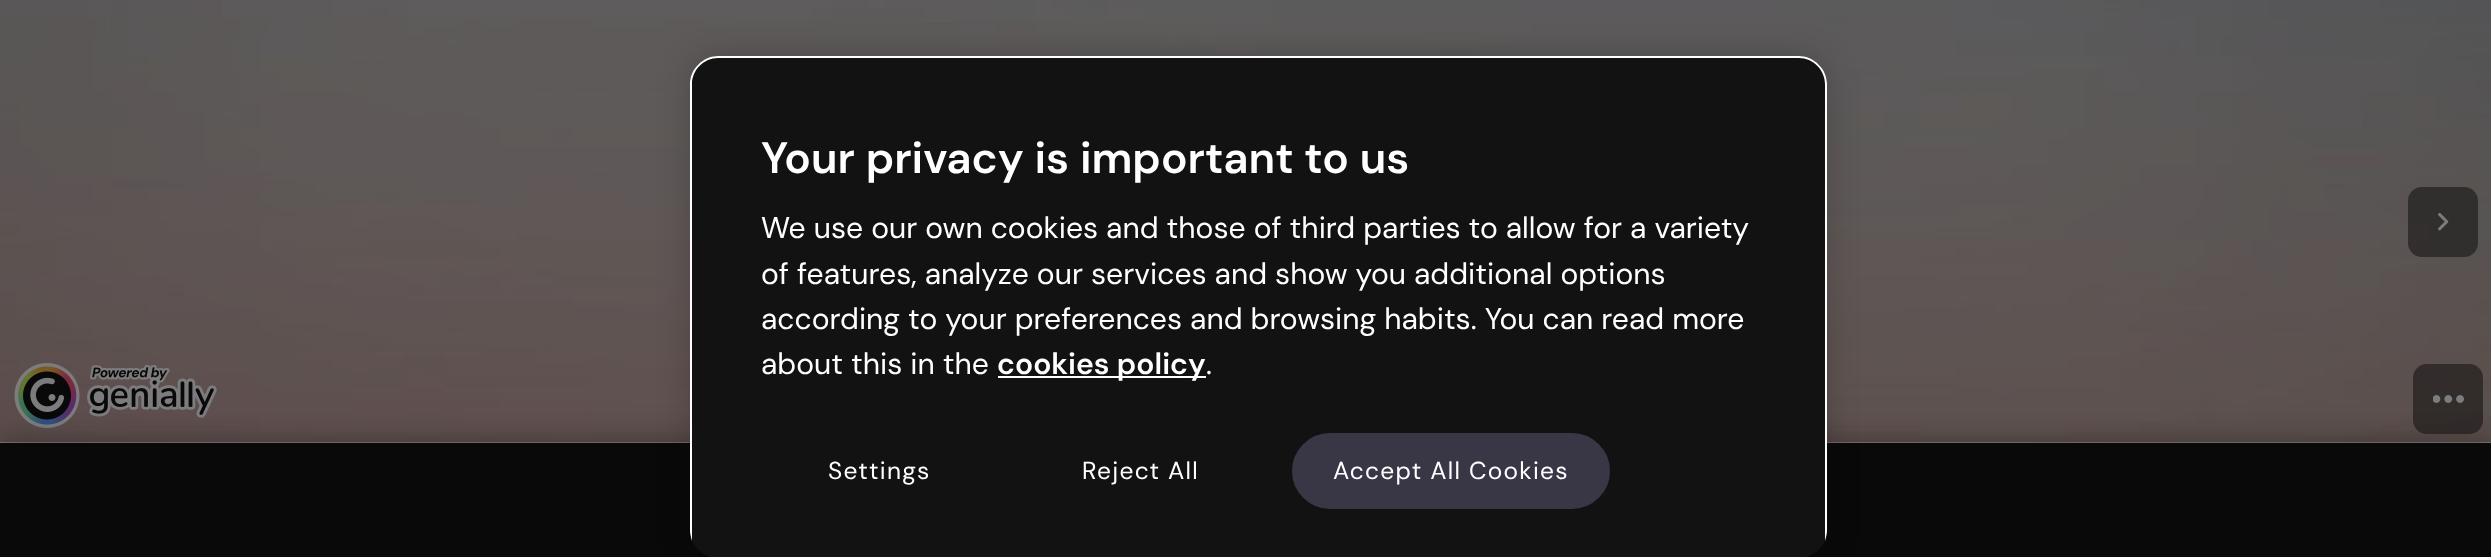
(async () => {
  const canvas = document.querySelector("canvas");
  canvas.width = 2491;
  canvas.height = 557;
  const ctx = canvas.getContext("2d");
  ctx.miterLimit = 4;
  ctx.fontKerning = "normal";
  async function loadImage(src) {
    const img = new Image();
    img.src = src;
    await img.decode();
    return img;
  }
  let path;

  ctx.fillStyle = "#ffffff";
  ctx.fillRect(0, 0, 2491, 557);
  ctx.drawImage(await loadImage("img/1.png"), 0, 0, 2491, 443);
  ctx.drawImage(await loadImage("img/2.png"), 14, 363, 203, 65);
  ctx.fillStyle = "rgba(9, 9, 9, 0.5)";
  ctx.beginPath();
  ctx.roundRect(2408, 187, 70, 70, 14);
  ctx.fill();
  ctx.drawImage(await loadImage("img/3.png"), 2438, 212, 11, 19);
  ctx.beginPath();
  ctx.roundRect(2413, 364, 70, 70, 14);
  ctx.fill();
  ctx.drawImage(await loadImage("img/4.png"), 2433, 395, 31, 8);
  ctx.fillStyle = "rgba(9, 9, 9, 0.3)";
  ctx.filter = "blur(11.5px)";
  ctx.beginPath();
  ctx.rect(0, 439, 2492, 118);
  ctx.fill();
  ctx.filter = "none";
  ctx.fillStyle = "#090909";
  ctx.fillRect(0, 443, 2491, 114);
  ctx.fillStyle = "rgba(0, 0, 0, 0.2)";
  ctx.filter = "blur(16px)";
  ctx.beginPath();
  ctx.roundRect(690, 56, 1137, 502, 28);
  ctx.fill();
  ctx.filter = "none";
  ctx.fillStyle = "#121212";
  ctx.beginPath();
  ctx.roundRect(690, 56, 1137, 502, 28);
  ctx.fill();
  ctx.fillStyle = "#ffffff";
  path = new Path2D("M718 56C703 56 690 69 690 84V530C690 534 691 537 692 541V84C692 70 704 58 718 58H1799C1813 58 1825 70 1825 84V541C1826 537 1827 534 1827 530V84C1827 69 1814 56 1799 56Z");
  ctx.fill(path);
  ctx.fillRect(998, 376, 208, 2);
  ctx.fillStyle = "#393645";
  ctx.beginPath();
  ctx.roundRect(1291, 432, 320, 78, 39);
  ctx.fill();
  ctx.strokeStyle = "#121212";
  ctx.lineWidth = 2;
  ctx.stroke();
  ctx.font = "600 44.1px DM Sans";
  ctx.fillStyle = "#ffffff";
  ctx.fillText("Your privacy is important to us", 761, 173);
  ctx.font = "30.1px DM Sans";
  for (const [text, x, y] of [
    ["We use our own cookies and those of third parties to allow for a variety", 761, 238],
    ["of features, analyze our services and show you additional options", 761, 284],
    ["according to your preferences and browsing habits. You can read more", 761, 329],
    ["about this in the", 761, 374],
  ]) {
    ctx.fillText(text, x, y);
  }
  ctx.font = "600 30.1px DM Sans";
  ctx.fillText("cookies policy", 997, 374);
  ctx.font = "30.1px DM Sans";
  ctx.fillText(".", 1206, 374);
  ctx.letterSpacing = "1.25px";
  ctx.font = "24.5px DM Sans";
  for (const [text, x, y] of [
    ["Settings", 828, 479],
    ["Reject All", 1082, 479],
    ["Accept All Cookies", 1333, 479],
  ]) {
    ctx.fillText(text, x, y);
  }
})();
